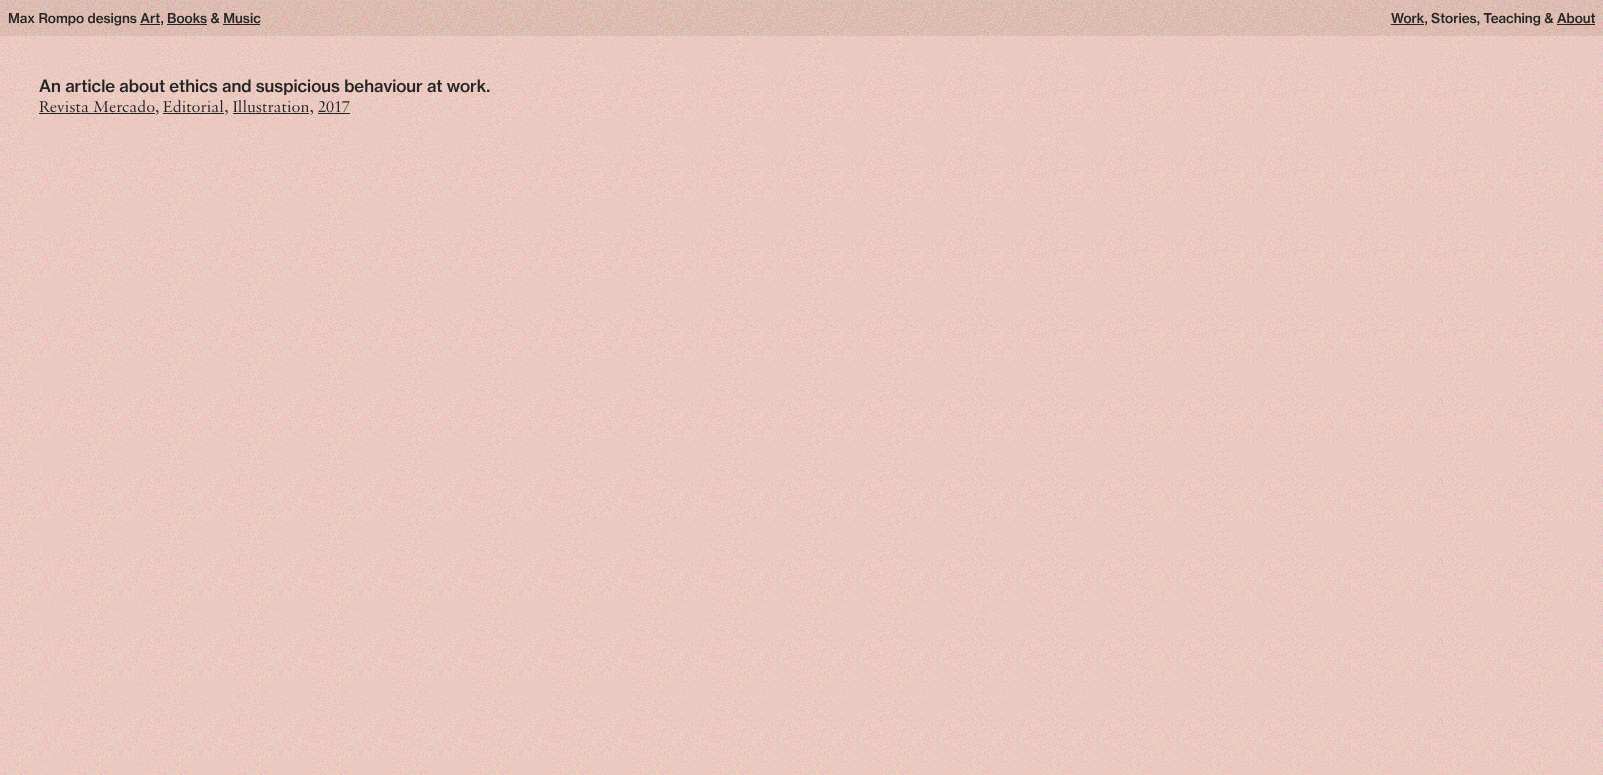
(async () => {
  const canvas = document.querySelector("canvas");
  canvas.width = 1603;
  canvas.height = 775;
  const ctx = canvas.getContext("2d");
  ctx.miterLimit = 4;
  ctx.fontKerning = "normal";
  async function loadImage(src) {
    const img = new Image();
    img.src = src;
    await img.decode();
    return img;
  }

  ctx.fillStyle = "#ffcabd";
  ctx.fillRect(0, 0, 1603, 775);
  ctx.drawImage(await loadImage("img/1.png"), 0, 36, 1603, 739);
  ctx.fillStyle = "#e9b5a5";
  ctx.fillRect(0, 0, 1603, 36);
  ctx.drawImage(await loadImage("img/2.png"), 0, 0, 1603, 36);
  for (const [x, y, w, h, color] of [
    [140, 24, 20, 1, "#252525"],
    [167, 24, 40, 1, "#252525"],
    [223, 24, 37, 1, "#252525"],
    [1391, 24, 33, 1, "#252525"],
    [1557, 24, 38, 1, "#252525"],
    [39, 113, 116, 1, "#252525"],
    [163, 113, 61, 1, "#252525"],
    [233, 113, 76, 1, "#252525"],
    [318, 113, 32, 1, "#252525"],
  ]) {
    ctx.fillStyle = color;
    ctx.fillRect(x, y, w, h);
  }
  ctx.font = "500 13.4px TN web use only";
  ctx.fillText("Max Rompo designs Art, Books & Music", 8, 23);
  ctx.fillText("Work, Stories, Teaching & About", 1391, 23);
  ctx.font = "500 16.75px TN web use only";
  ctx.fillText("An article about ethics and suspicious behaviour at work.", 39, 92);
  ctx.font = "16.75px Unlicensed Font";
  ctx.fillText("Revista Mercado,", 39, 112);
  ctx.fillText("Editorial, Illustration, 2017", 163, 112);
})();
